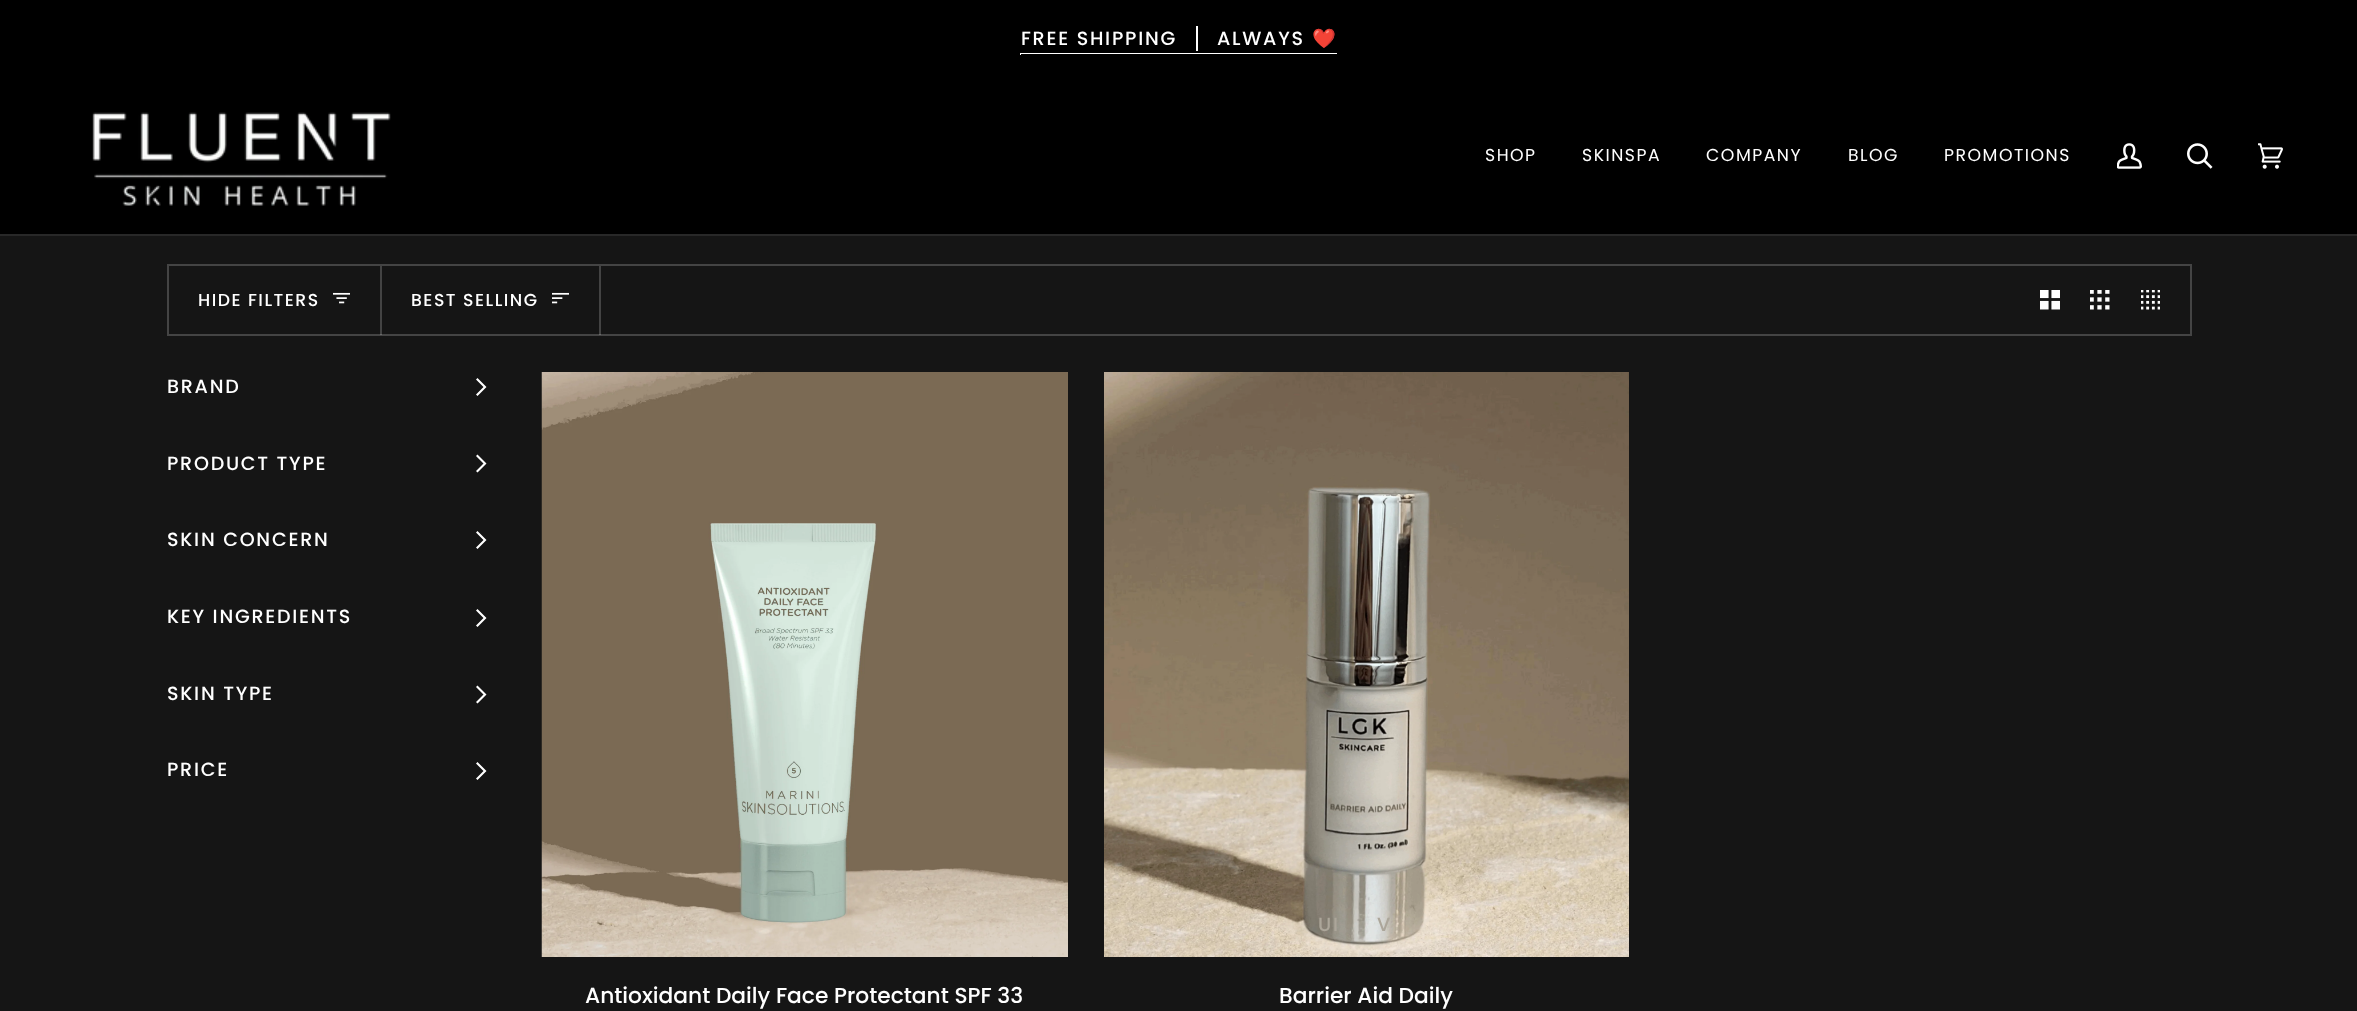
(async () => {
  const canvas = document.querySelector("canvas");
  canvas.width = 2357;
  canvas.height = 1011;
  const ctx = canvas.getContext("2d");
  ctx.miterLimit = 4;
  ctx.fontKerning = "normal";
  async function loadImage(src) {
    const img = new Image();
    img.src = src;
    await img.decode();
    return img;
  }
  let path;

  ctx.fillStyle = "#151515";
  ctx.fillRect(0, 0, 2357, 1011);
  ctx.fillStyle = "#000000";
  ctx.fillRect(0, 0, 2357, 234);
  ctx.fillStyle = "#ffffff";
  ctx.fillRect(1196, 26, 2, 25);
  path = new Path2D("M1020 53V55H1021V54H1337V53Z");
  ctx.fill(path);
  ctx.fillStyle = "#282828";
  ctx.fillRect(0, 234, 2357, 2);
  ctx.drawImage(await loadImage("img/1.png"), 92, 112, 299, 94);
  ctx.drawImage(await loadImage("img/2.png"), 2117, 143, 25, 26);
  ctx.drawImage(await loadImage("img/3.png"), 2187, 143, 26, 26);
  ctx.drawImage(await loadImage("img/4.png"), 2258, 143, 25, 26);
  ctx.strokeStyle = "#444444";
  ctx.lineWidth = 2;
  ctx.strokeRect(168, 265, 2023, 70);
  ctx.fillStyle = "rgba(255, 255, 255, 0.2)";
  ctx.fillRect(380, 266, 2, 69);
  ctx.drawImage(await loadImage("img/5.png"), 333, 292, 17, 12);
  ctx.fillRect(599, 266, 2, 69);
  ctx.drawImage(await loadImage("img/6.png"), 552, 292, 17, 12);
  ctx.drawImage(await loadImage("img/7.png"), 2040, 290, 20, 20);
  ctx.drawImage(await loadImage("img/8.png"), 2090, 290, 20, 20);
  ctx.drawImage(await loadImage("img/9.png"), 2141, 290, 19, 20);
  ctx.fillStyle = "#ffffff";
  path = new Path2D("M483.5 387L476 379.5L477.5 378L486.5 387L477.5 396L476 394.5Z");
  ctx.fill(path, "evenodd");
  path = new Path2D("M483.5 463.5L476 456L477.5 454.5L486.5 463.5L477.5 472.5L476 471Z");
  ctx.fill(path, "evenodd");
  path = new Path2D("M483.5 540L476 532.5L477.5 531L486.5 540L477.5 549L476 547.5Z");
  ctx.fill(path, "evenodd");
  path = new Path2D("M483.5 618L476 610.5L477.5 609L486.5 618L477.5 627L476 625.5Z");
  ctx.fill(path, "evenodd");
  path = new Path2D("M483.5 694.5L476 687L477.5 685.5L486.5 694.5L477.5 703.5L476 702Z");
  ctx.fill(path, "evenodd");
  path = new Path2D("M483.5 771L476 763.5L477.5 762L486.5 771L477.5 780L476 778.5Z");
  ctx.fill(path, "evenodd");
  ctx.drawImage(await loadImage("img/10.png"), 541, 372, 527, 585);
  ctx.drawImage(await loadImage("img/11.png"), 1104, 372, 525, 585);
  ctx.letterSpacing = "1.75px";
  ctx.font = "500 19.1px Poppins";
  ctx.fillText("FREE SHIPPING", 1021, 45);
  ctx.fillText("ALWAYS", 1217, 45);
  ctx.font = "19.1px Noto Color Emoji";
  ctx.fillText("❤️", 1312, 45);
  ctx.letterSpacing = "1.5px";
  ctx.font = "17.25px Poppins";
  for (const [text, x, y] of [
    ["SHOP", 1485, 161],
    ["SKINSPA", 1582, 161],
    ["COMPANY", 1706, 161],
    ["BLOG", 1848, 161],
    ["PROMOTIONS", 1944, 161],
  ]) {
    ctx.fillText(text, x, y);
  }
  ctx.font = "500 17.25px Poppins";
  ctx.fillText("HIDE FILTERS", 198, 306);
  ctx.fillText("BEST SELLING", 411, 306);
  ctx.letterSpacing = "1.75px";
  ctx.font = "500 19.1px Poppins";
  for (const [text, x, y] of [
    ["BRAND", 167, 393],
    ["PRODUCT TYPE", 167, 470],
    ["SKIN CONCERN", 167, 546],
    ["KEY INGREDIENTS", 167, 623],
    ["SKIN TYPE", 167, 700],
    ["PRICE", 167, 776],
  ]) {
    ctx.fillText(text, x, y);
  }
  ctx.letterSpacing = "0px";
  ctx.font = "500 21.75px Poppins";
  ctx.fillText("Antioxidant Daily Face Protectant SPF 33", 585, 1003);
  ctx.letterSpacing = "1.75px";
  ctx.font = "500 19.1px Poppins";
  ctx.fillStyle = "#aca69a";
  ctx.fillText("UI", 1318, 931);
  ctx.fillText("V", 1377, 931);
  ctx.letterSpacing = "0px";
  ctx.font = "500 21.75px Poppins";
  ctx.fillStyle = "#ffffff";
  ctx.fillText("Barrier Aid Daily", 1279, 1003);
})();
